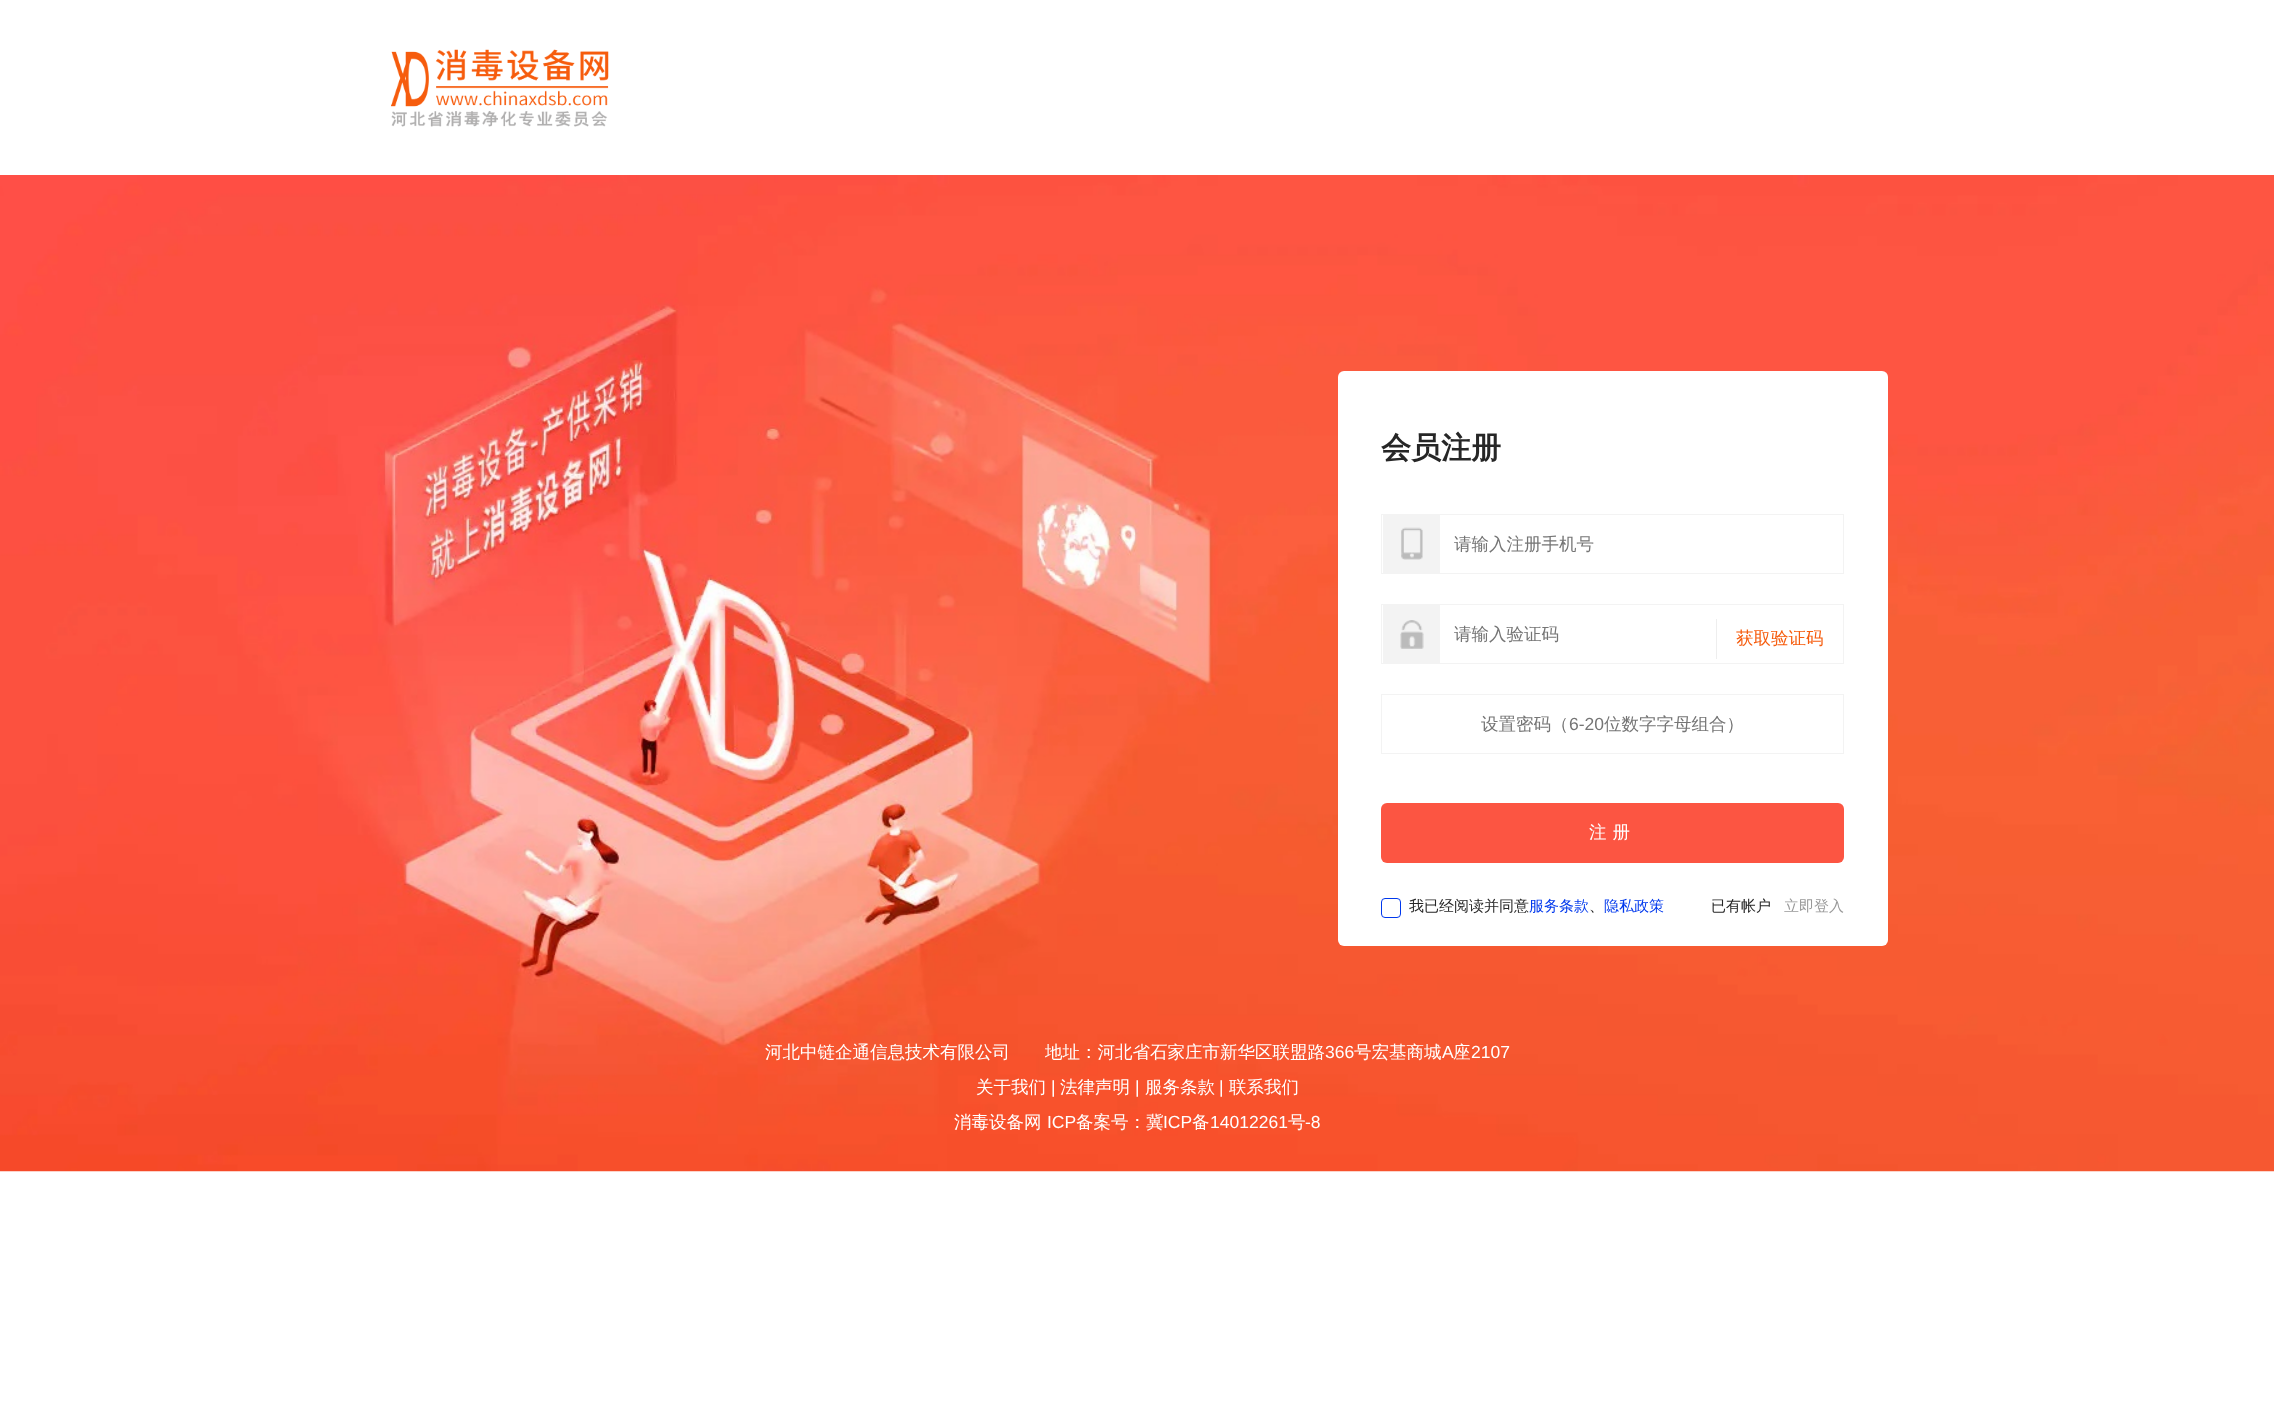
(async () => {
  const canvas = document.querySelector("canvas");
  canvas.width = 2274;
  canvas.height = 1423;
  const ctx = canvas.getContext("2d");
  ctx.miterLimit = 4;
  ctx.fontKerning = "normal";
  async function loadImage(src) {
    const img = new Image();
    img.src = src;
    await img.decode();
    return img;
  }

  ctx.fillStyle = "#ffffff";
  ctx.fillRect(0, 0, 2274, 1423);
  ctx.drawImage(await loadImage("img/1.png"), 391, 49, 218, 78);
  ctx.drawImage(await loadImage("img/2.png"), 0, 175, 2274, 997);
  ctx.beginPath();
  ctx.roundRect(1338, 371, 550, 575, 6);
  ctx.fill();
  ctx.strokeStyle = "#f3f3f3";
  ctx.strokeRect(1381.5, 514.5, 462, 59);
  ctx.fillStyle = "#f3f3f3";
  ctx.fillRect(1383, 515, 57, 58);
  ctx.drawImage(await loadImage("img/3.png"), 1401, 527, 22, 33);
  ctx.strokeRect(1381.5, 604.5, 462, 59);
  ctx.fillRect(1383, 605, 57, 58);
  ctx.drawImage(await loadImage("img/4.png"), 1400, 620, 24, 29);
  ctx.fillStyle = "#eeeeee";
  ctx.fillRect(1716, 619, 1, 40);
  ctx.strokeRect(1381.5, 694.5, 462, 59);
  ctx.fillStyle = "#fc5542";
  ctx.beginPath();
  ctx.roundRect(1381, 803, 463, 60, 6);
  ctx.fill();
  ctx.beginPath();
  ctx.roundRect(1381.5, 898.5, 19, 19, 3.5);
  ctx.strokeStyle = "#0038ed";
  ctx.stroke();
  ctx.font = "bold 30px WenQuanYi Zen Hei";
  ctx.fillStyle = "#262626";
  ctx.fillText("会员注册", 1381, 458);
  ctx.font = "500 17.5px WenQuanYi Zen Hei";
  ctx.fillStyle = "#757575";
  ctx.fillText("请输入注册手机号", 1454, 550);
  ctx.fillText("请输入验证码", 1454, 640);
  ctx.fillStyle = "#f65c0d";
  ctx.fillText("获取验证码", 1736, 644);
  ctx.fillStyle = "#757575";
  ctx.fillText("设置密码（", 1481, 730);
  ctx.font = "17.5px Liberation Sans";
  ctx.fillText("6-20", 1569, 730);
  ctx.font = "500 17.5px WenQuanYi Zen Hei";
  ctx.fillText("位数字字母组合）", 1604, 730);
  ctx.letterSpacing = "6px";
  ctx.fillStyle = "#ffffff";
  ctx.fillText("注册", 1589, 838);
  ctx.letterSpacing = "0px";
  ctx.font = "500 15px WenQuanYi Zen Hei";
  ctx.fillStyle = "#262626";
  ctx.fillText("我已经阅读并同意", 1409, 911);
  ctx.fillStyle = "#0038ed";
  ctx.fillText("服务条款", 1529, 911);
  ctx.fillStyle = "#262626";
  ctx.fillText("、", 1589, 911);
  ctx.fillStyle = "#0038ed";
  ctx.fillText("隐私政策", 1604, 911);
  ctx.fillStyle = "#262626";
  ctx.fillText("已有帐户", 1711, 911);
  ctx.fillStyle = "#999999";
  ctx.fillText("立即登入", 1784, 911);
  ctx.font = "500 17.5px WenQuanYi Zen Hei";
  ctx.fillStyle = "#ffffff";
  ctx.fillText("河北中链企通信息技术有限公司", 765, 1058);
  ctx.fillText("地址：河北省石家庄市新华区联盟路", 1045, 1058);
  ctx.font = "17.5px Liberation Sans";
  ctx.fillText("366", 1325, 1058);
  ctx.font = "500 17.5px WenQuanYi Zen Hei";
  ctx.fillText("号宏基商城", 1354, 1058);
  ctx.font = "17.5px Liberation Sans";
  ctx.fillText("A", 1442, 1058);
  ctx.font = "500 17.5px WenQuanYi Zen Hei";
  ctx.fillText("座", 1453, 1058);
  ctx.font = "17.5px Liberation Sans";
  ctx.fillText("2107", 1471, 1058);
  ctx.font = "500 17.5px WenQuanYi Zen Hei";
  ctx.fillText("关于我们", 976, 1093);
  ctx.font = "17.5px Liberation Sans";
  ctx.fillText("|", 1051, 1093);
  ctx.font = "500 17.5px WenQuanYi Zen Hei";
  ctx.fillText("法律声明", 1060, 1093);
  ctx.font = "17.5px Liberation Sans";
  ctx.fillText("|", 1135, 1093);
  ctx.font = "500 17.5px WenQuanYi Zen Hei";
  ctx.fillText("服务条款", 1145, 1093);
  ctx.font = "17.5px Liberation Sans";
  ctx.fillText("|", 1219, 1093);
  ctx.font = "500 17.5px WenQuanYi Zen Hei";
  ctx.fillText("联系我们", 1229, 1093);
  ctx.fillText("消毒设备网", 954, 1128);
  ctx.font = "17.5px Liberation Sans";
  ctx.fillText("ICP", 1047, 1128);
  ctx.font = "500 17.5px WenQuanYi Zen Hei";
  ctx.fillText("备案号：冀", 1076, 1128);
  ctx.font = "17.5px Liberation Sans";
  ctx.fillText("ICP", 1163, 1128);
  ctx.font = "500 17.5px WenQuanYi Zen Hei";
  ctx.fillText("备", 1192, 1128);
  ctx.font = "17.5px Liberation Sans";
  ctx.fillText("14012261", 1210, 1128);
  ctx.font = "500 17.5px WenQuanYi Zen Hei";
  ctx.fillText("号", 1288, 1128);
  ctx.font = "17.5px Liberation Sans";
  ctx.fillText("-8", 1305, 1128);
})();
